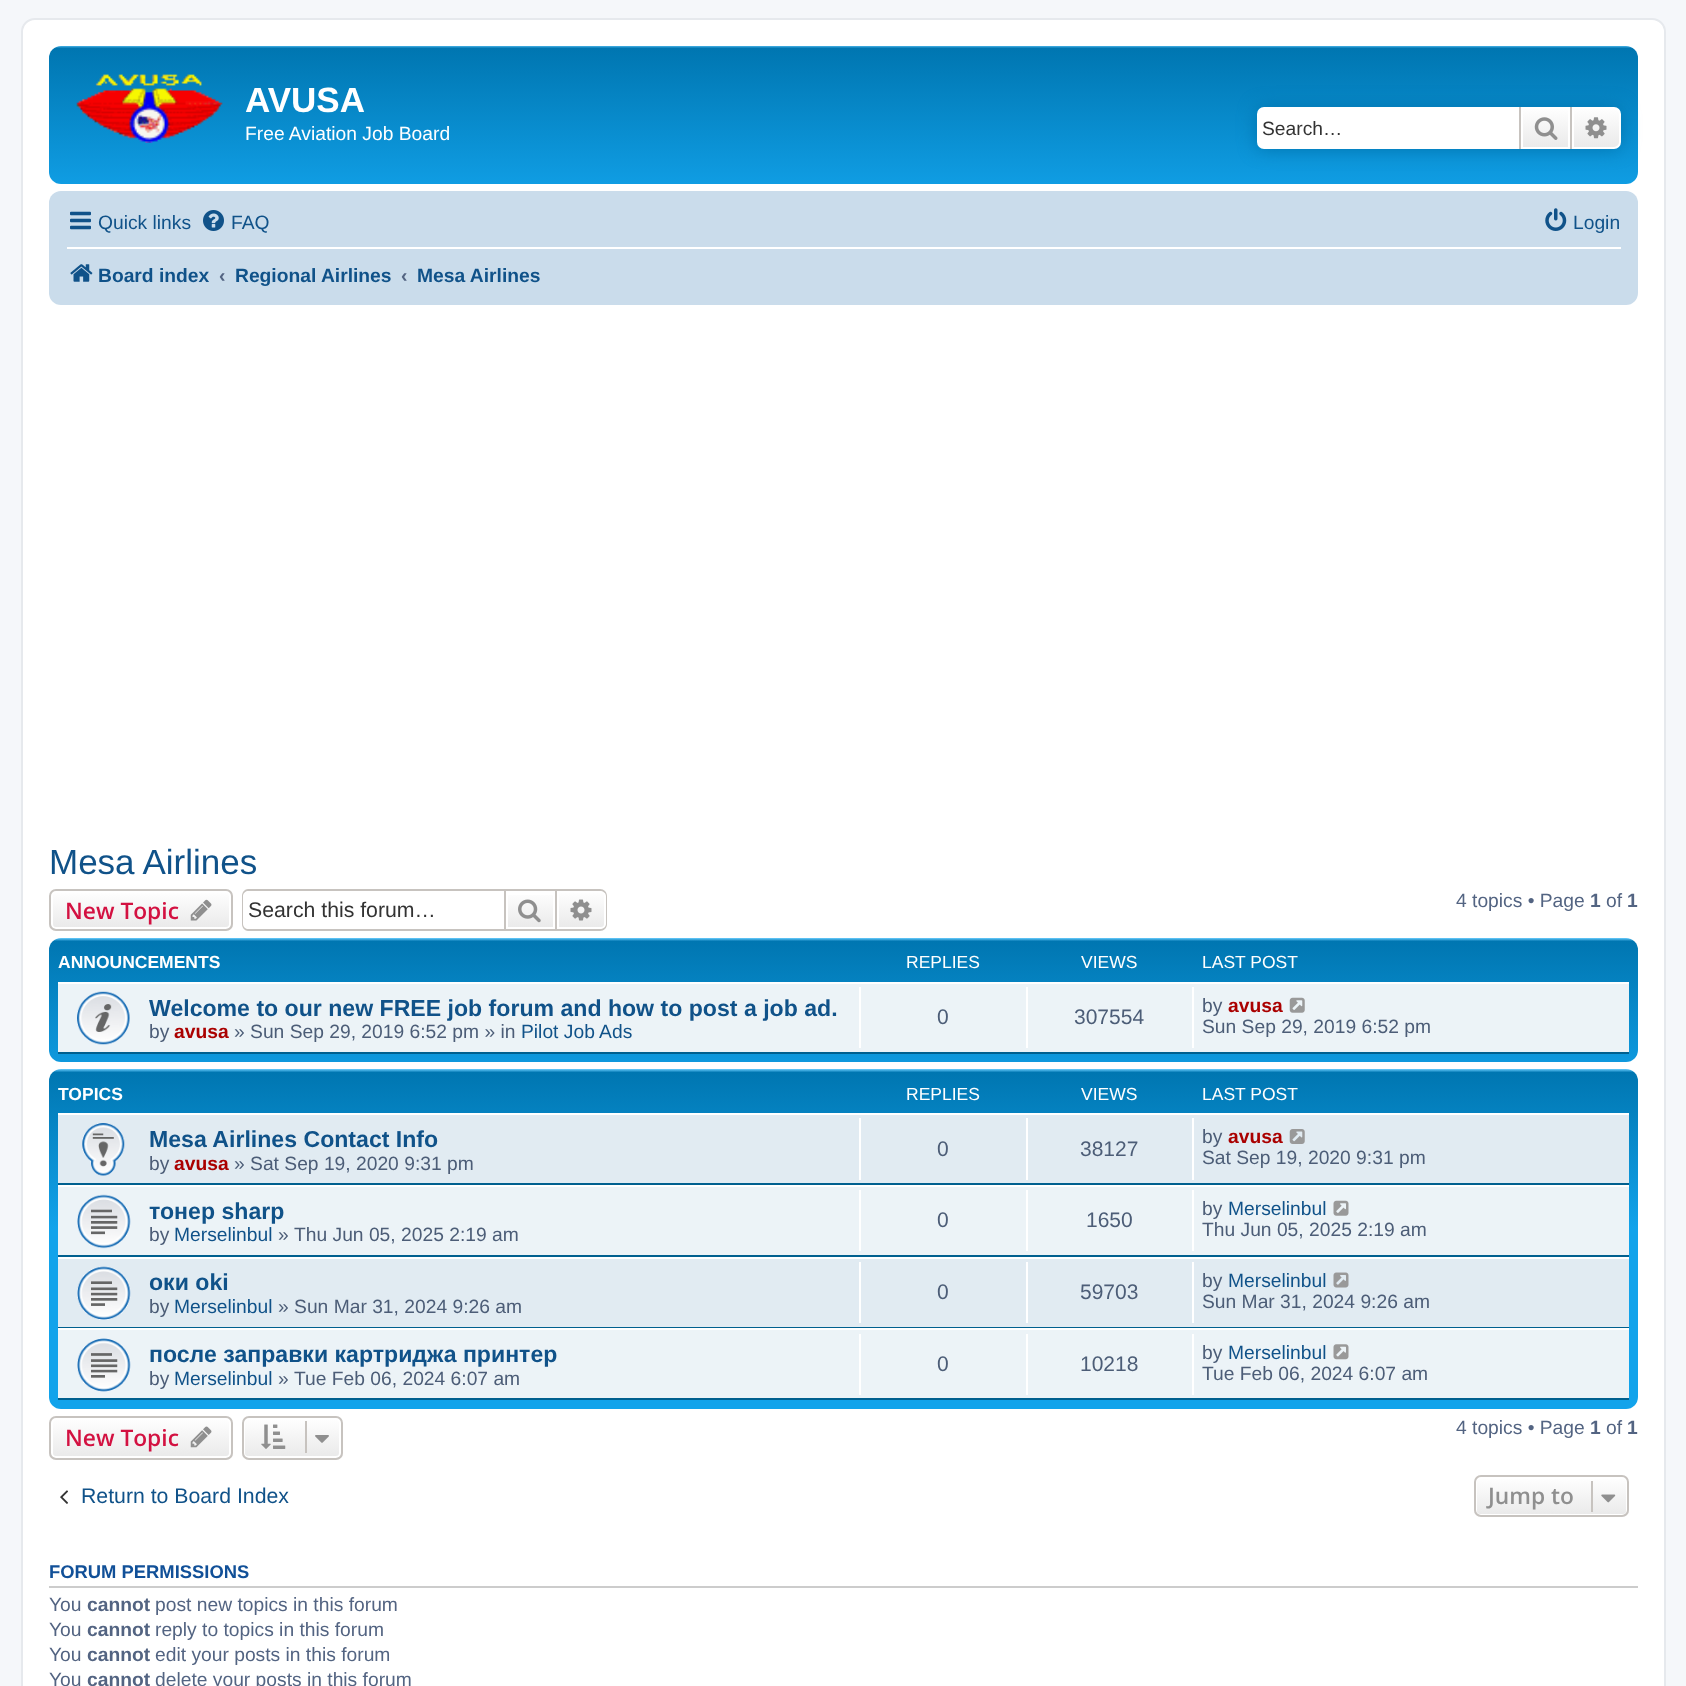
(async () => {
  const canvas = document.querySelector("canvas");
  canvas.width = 1686;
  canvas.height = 1686;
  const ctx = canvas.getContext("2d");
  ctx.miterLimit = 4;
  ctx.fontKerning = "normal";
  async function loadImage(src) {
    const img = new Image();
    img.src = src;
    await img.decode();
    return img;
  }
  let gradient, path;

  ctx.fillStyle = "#f5f7fa";
  ctx.fillRect(0, 0, 1686, 1686);
  ctx.fillStyle = "#ffffff";
  ctx.beginPath();
  ctx.roundRect(22, 19, 1643, 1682, 13);
  ctx.fill();
  ctx.strokeStyle = "#e6e9ed";
  ctx.lineWidth = 2;
  ctx.stroke();
  gradient = ctx.createLinearGradient(844, 45, 844, 206);
  gradient.addColorStop(0, "#6aceff");
  gradient.addColorStop(0.02, "#0076b1");
  gradient.addColorStop(1, "#12a3eb");
  ctx.fillStyle = gradient;
  ctx.beginPath();
  ctx.roundRect(49, 46, 1589, 138, 12);
  ctx.fill();
  ctx.drawImage(await loadImage("img/1.png"), 76, 74, 147, 69);
  ctx.fillStyle = "#0075b0";
  ctx.filter = "blur(9px)";
  ctx.beginPath();
  ctx.roundRect(1257, 107, 364, 42, 7);
  ctx.fill();
  ctx.filter = "none";
  ctx.fillStyle = "#ffffff";
  ctx.beginPath();
  ctx.roundRect(1257, 107, 262, 42, [7, 0, 0, 7]);
  ctx.fill();
  gradient = ctx.createLinearGradient(1545, 107, 1545, 149);
  gradient.addColorStop(0, "#ffffff");
  gradient.addColorStop(1, "#e9e9e9");
  ctx.fillStyle = gradient;
  ctx.fillRect(1523, 109, 45, 38);
  ctx.strokeStyle = "#ffffff";
  ctx.strokeRect(1522, 108, 47, 40);
  ctx.fillStyle = "#c7c3bf";
  ctx.fillRect(1570, 107, 2, 42);
  ctx.fillRect(1519, 107, 2, 42);
  ctx.drawImage(await loadImage("img/2.png"), 1534, 117, 24, 23);
  gradient = ctx.createLinearGradient(1596, 107, 1596, 149);
  gradient.addColorStop(0, "#ffffff");
  gradient.addColorStop(1, "#e9e9e9");
  ctx.fillStyle = gradient;
  ctx.beginPath();
  ctx.roundRect(1573, 108, 47, 40, [0, 6, 6, 0]);
  ctx.fill();
  ctx.stroke();
  ctx.drawImage(await loadImage("img/3.png"), 1585, 117, 22, 22);
  ctx.fillStyle = "#cadceb";
  ctx.beginPath();
  ctx.roundRect(49, 191, 1589, 114, 12);
  ctx.fill();
  ctx.drawImage(await loadImage("img/4.png"), 70, 211, 21, 19);
  ctx.drawImage(await loadImage("img/5.png"), 203, 210, 21, 21);
  ctx.drawImage(await loadImage("img/6.png"), 1545, 208, 22, 23);
  ctx.fillStyle = "#ffffff";
  ctx.fillRect(67, 247, 1554, 2);
  ctx.drawImage(await loadImage("img/7.png"), 70, 264, 23, 18);
  ctx.save();
  ctx.beginPath();
  ctx.roundRect(49, 889, 184, 42, 7);
  ctx.clip();
  gradient = ctx.createLinearGradient(141, 891, 141, 929);
  gradient.addColorStop(0, "#ffffff");
  gradient.addColorStop(1, "#e9e9e9");
  ctx.fillStyle = gradient;
  ctx.fillRect(49, 891, 184, 38);
  ctx.restore();
  ctx.beginPath();
  ctx.roundRect(52, 892, 178, 36, 4);
  ctx.stroke();
  ctx.beginPath();
  ctx.roundRect(50, 890, 182, 40, 6);
  ctx.strokeStyle = "#c7c3bf";
  ctx.stroke();
  ctx.drawImage(await loadImage("img/8.png"), 190, 899, 22, 22);
  ctx.fillStyle = "#c7c3bf";
  path = new Path2D("M248 889H504V931H248C245 931 242 928 242 924V896C242 892 245 889 248 889ZM248 891H504V929H248C246 929 243 927 243 924V896C243 893 246 891 248 891Z");
  ctx.fill(path, "evenodd");
  gradient = ctx.createLinearGradient(530, 891, 530, 929);
  gradient.addColorStop(0, "#ffffff");
  gradient.addColorStop(1, "#e9e9e9");
  ctx.fillStyle = gradient;
  ctx.fillRect(508, 895, 45, 32);
  ctx.strokeRect(505, 890, 51, 40);
  ctx.drawImage(await loadImage("img/9.png"), 518, 899, 23, 24);
  gradient = ctx.createLinearGradient(581, 891, 581, 929);
  gradient.addColorStop(0, "#ffffff");
  gradient.addColorStop(1, "#e9e9e9");
  ctx.fillStyle = gradient;
  ctx.beginPath();
  ctx.roundRect(558, 892, 47, 36, [0, 4, 4, 0]);
  ctx.fill();
  ctx.strokeStyle = "#ffffff";
  ctx.stroke();
  ctx.fillStyle = "#c7c3bf";
  path = new Path2D("M556 889H600C604 889 607 892 607 896V924C607 928 604 931 600 931H556ZM556 891H600C603 891 606 893 606 896V924C606 927 603 929 600 929H556Z");
  ctx.fill(path, "evenodd");
  ctx.drawImage(await loadImage("img/10.png"), 570, 899, 22, 22);
  gradient = ctx.createLinearGradient(844, 938, 844, 1099);
  gradient.addColorStop(0, "#6aceff");
  gradient.addColorStop(0.02, "#0076b1");
  gradient.addColorStop(1, "#12a3eb");
  ctx.fillStyle = gradient;
  ctx.beginPath();
  ctx.roundRect(49, 938, 1589, 124, 12);
  ctx.fill();
  for (const [x, y, w, h, color] of [
    [58, 984, 1571, 68, "#ecf3f7"],
    [58, 982, 1571, 2, "#ffffff"],
    [58, 1052, 1571, 2, "#00608f"],
  ]) {
    ctx.fillStyle = color;
    ctx.fillRect(x, y, w, h);
  }
  ctx.drawImage(await loadImage("img/11.png"), 77, 991, 53, 54);
  for (const [x, y, w, h, color] of [
    [859, 987, 2, 61, "#ffffff"],
    [1026, 987, 2, 61, "#ffffff"],
    [1192, 987, 2, 61, "#ffffff"],
  ]) {
    ctx.fillStyle = color;
    ctx.fillRect(x, y, w, h);
  }
  ctx.drawImage(await loadImage("img/12.png"), 1289, 997, 16, 16);
  gradient = ctx.createLinearGradient(844, 1069, 844, 1409);
  gradient.addColorStop(0, "#6aceff");
  gradient.addColorStop(0.01, "#0076b1");
  gradient.addColorStop(0.47, "#12a3eb");
  gradient.addColorStop(1, "#12a3eb");
  ctx.fillStyle = gradient;
  ctx.beginPath();
  ctx.roundRect(49, 1069, 1589, 340, 12);
  ctx.fill();
  for (const [x, y, w, h, color] of [
    [58, 1115, 1571, 68, "#e1ebf2"],
    [58, 1113, 1571, 2, "#ffffff"],
    [58, 1183, 1571, 2, "#00608f"],
  ]) {
    ctx.fillStyle = color;
    ctx.fillRect(x, y, w, h);
  }
  ctx.drawImage(await loadImage("img/13.png"), 82, 1123, 43, 53);
  for (const [x, y, w, h, color] of [
    [859, 1118, 2, 62, "#ffffff"],
    [1026, 1118, 2, 62, "#ffffff"],
    [1192, 1118, 2, 62, "#ffffff"],
  ]) {
    ctx.fillStyle = color;
    ctx.fillRect(x, y, w, h);
  }
  ctx.drawImage(await loadImage("img/14.png"), 1289, 1129, 16, 15);
  for (const [x, y, w, h, color] of [
    [58, 1187, 1571, 68, "#ecf3f7"],
    [58, 1185, 1571, 2, "#ffffff"],
    [58, 1255, 1571, 2, "#00608f"],
  ]) {
    ctx.fillStyle = color;
    ctx.fillRect(x, y, w, h);
  }
  ctx.drawImage(await loadImage("img/15.png"), 77, 1194, 54, 55);
  for (const [x, y, w, h, color] of [
    [859, 1190, 2, 61, "#ffffff"],
    [1026, 1190, 2, 61, "#ffffff"],
    [1192, 1190, 2, 61, "#ffffff"],
  ]) {
    ctx.fillStyle = color;
    ctx.fillRect(x, y, w, h);
  }
  ctx.drawImage(await loadImage("img/16.png"), 1333, 1200, 16, 16);
  for (const [x, y, w, h, color] of [
    [58, 1259, 1571, 68, "#e1ebf2"],
    [58, 1257, 1571, 2, "#ffffff"],
    [58, 1327, 1571, 1, "#00608f"],
  ]) {
    ctx.fillStyle = color;
    ctx.fillRect(x, y, w, h);
  }
  ctx.drawImage(await loadImage("img/17.png"), 77, 1266, 54, 54);
  for (const [x, y, w, h, color] of [
    [859, 1262, 2, 61, "#ffffff"],
    [1026, 1262, 2, 61, "#ffffff"],
    [1192, 1262, 2, 61, "#ffffff"],
  ]) {
    ctx.fillStyle = color;
    ctx.fillRect(x, y, w, h);
  }
  ctx.drawImage(await loadImage("img/18.png"), 1333, 1272, 16, 16);
  for (const [x, y, w, h, color] of [
    [58, 1330, 1571, 68, "#ecf3f7"],
    [58, 1328, 1571, 2, "#ffffff"],
    [58, 1398, 1571, 2, "#00608f"],
  ]) {
    ctx.fillStyle = color;
    ctx.fillRect(x, y, w, h);
  }
  ctx.drawImage(await loadImage("img/19.png"), 77, 1338, 54, 54);
  for (const [x, y, w, h, color] of [
    [859, 1334, 2, 61, "#ffffff"],
    [1026, 1334, 2, 61, "#ffffff"],
    [1192, 1334, 2, 61, "#ffffff"],
  ]) {
    ctx.fillStyle = color;
    ctx.fillRect(x, y, w, h);
  }
  ctx.drawImage(await loadImage("img/20.png"), 1333, 1344, 16, 16);
  ctx.save();
  ctx.beginPath();
  ctx.roundRect(49, 1416, 184, 44, 7);
  ctx.clip();
  gradient = ctx.createLinearGradient(141, 1418, 141, 1458);
  gradient.addColorStop(0, "#ffffff");
  gradient.addColorStop(1, "#e9e9e9");
  ctx.fillStyle = gradient;
  ctx.fillRect(49, 1418, 184, 40);
  ctx.restore();
  ctx.beginPath();
  ctx.roundRect(52, 1419, 178, 38, 4);
  ctx.stroke();
  ctx.beginPath();
  ctx.roundRect(50, 1417, 182, 42, 6);
  ctx.strokeStyle = "#c7c3bf";
  ctx.stroke();
  ctx.drawImage(await loadImage("img/21.png"), 190, 1426, 22, 22);
  ctx.save();
  ctx.beginPath();
  ctx.roundRect(242, 1416, 101, 44, 7);
  ctx.clip();
  gradient = ctx.createLinearGradient(292, 1418, 292, 1458);
  gradient.addColorStop(0, "#ffffff");
  gradient.addColorStop(1, "#e9e9e9");
  ctx.fillStyle = gradient;
  ctx.fillRect(242, 1418, 101, 40);
  ctx.restore();
  ctx.beginPath();
  ctx.roundRect(244, 1419, 96, 38, 4);
  ctx.strokeStyle = "#ffffff";
  ctx.stroke();
  ctx.beginPath();
  ctx.roundRect(243, 1417, 99, 42, 6);
  ctx.strokeStyle = "#c7c3bf";
  ctx.stroke();
  ctx.drawImage(await loadImage("img/22.png"), 261, 1424, 25, 25);
  ctx.fillStyle = "#c7c3bf";
  ctx.fillRect(305, 1421, 2, 32);
  ctx.drawImage(await loadImage("img/23.png"), 315, 1435, 14, 8);
  ctx.drawImage(await loadImage("img/24.png"), 60, 1490, 8, 14);
  ctx.save();
  ctx.beginPath();
  ctx.roundRect(1474, 1475, 155, 42, 7);
  ctx.clip();
  gradient = ctx.createLinearGradient(1551, 1477, 1551, 1516);
  gradient.addColorStop(0, "#ffffff");
  gradient.addColorStop(1, "#e9e9e9");
  ctx.fillStyle = gradient;
  ctx.fillRect(1474, 1477, 155, 39);
  ctx.restore();
  ctx.beginPath();
  ctx.roundRect(1476, 1478, 151, 37, 4);
  ctx.strokeStyle = "#ffffff";
  ctx.stroke();
  ctx.beginPath();
  ctx.roundRect(1475, 1476, 153, 40, 6);
  ctx.strokeStyle = "#c7c3bf";
  ctx.stroke();
  ctx.fillRect(1591, 1481, 2, 31);
  ctx.drawImage(await loadImage("img/25.png"), 1601, 1494, 15, 9);
  ctx.fillStyle = "#cccccc";
  ctx.fillRect(49, 1586, 1589, 2);
  ctx.font = "bold 35px Liberation Sans";
  ctx.fillStyle = "#ffffff";
  ctx.fillText("AVUSA", 245, 112);
  ctx.font = "19.25px Liberation Sans";
  ctx.fillText("Free Aviation Job Board", 245, 140);
  ctx.fillStyle = "#333333";
  ctx.fillText("Search…", 1262, 135);
  ctx.fillStyle = "#105289";
  for (const [text, x, y] of [
    ["Quick links", 98, 229],
    ["FAQ", 231, 229],
    ["Login", 1573, 229],
  ]) {
    ctx.fillText(text, x, y);
  }
  ctx.font = "bold 19.25px Liberation Sans";
  ctx.fillText("Board index", 98, 282);
  ctx.fillStyle = "#536482";
  ctx.fillText("‹", 219, 282);
  ctx.fillStyle = "#105289";
  ctx.fillText("Regional Airlines", 235, 282);
  ctx.fillStyle = "#536482";
  ctx.fillText("‹", 401, 282);
  ctx.fillStyle = "#105289";
  ctx.fillText("Mesa Airlines", 417, 282);
  ctx.font = "35px Liberation Sans";
  ctx.fillText("Mesa Airlines", 49, 874);
  ctx.font = "600 22.75px Open Sans";
  ctx.fillStyle = "#d31141";
  ctx.fillText("New Topic", 65, 919);
  ctx.font = "21.25px Liberation Sans";
  ctx.fillStyle = "#333333";
  ctx.fillText("Search this forum…", 248, 917);
  ctx.font = "19.25px Liberation Sans";
  ctx.fillStyle = "#536482";
  ctx.fillText("4 topics • Page", 1456, 907);
  ctx.font = "bold 19.25px Liberation Sans";
  ctx.fillText("1", 1590, 907);
  ctx.font = "19.25px Liberation Sans";
  ctx.fillText("of", 1606, 907);
  ctx.font = "bold 19.25px Liberation Sans";
  ctx.fillText("1", 1627, 907);
  ctx.font = "bold 17.5px Liberation Sans";
  ctx.fillStyle = "#ffffff";
  ctx.fillText("ANNOUNCEMENTS", 58, 968);
  ctx.font = "17.5px Liberation Sans";
  for (const [text, x, y] of [
    ["REPLIES", 906, 968],
    ["VIEWS", 1081, 968],
    ["LAST POST", 1202, 968],
  ]) {
    ctx.fillText(text, x, y);
  }
  ctx.font = "bold 23.1px Liberation Sans";
  ctx.fillStyle = "#105289";
  ctx.fillText("Welcome to our new FREE job forum and how to post a job ad.", 149, 1016);
  ctx.font = "19.25px Liberation Sans";
  ctx.fillStyle = "#4c5d77";
  ctx.fillText("by", 149, 1038);
  ctx.font = "bold 19.25px Liberation Sans";
  ctx.fillStyle = "#aa0000";
  ctx.fillText("avusa", 174, 1038);
  ctx.font = "19.25px Liberation Sans";
  ctx.fillStyle = "#4c5d77";
  ctx.fillText("» Sun Sep 29, 2019 6:52 pm » in", 234, 1038);
  ctx.fillStyle = "#105289";
  ctx.fillText("Pilot Job Ads", 521, 1038);
  ctx.font = "21px Liberation Sans";
  ctx.fillStyle = "#4c5d77";
  ctx.fillText("0", 937, 1024);
  ctx.fillText("307554", 1074, 1024);
  ctx.font = "19.25px Liberation Sans";
  ctx.fillText("by", 1202, 1012);
  ctx.font = "bold 19.25px Liberation Sans";
  ctx.fillStyle = "#aa0000";
  ctx.fillText("avusa", 1228, 1012);
  ctx.font = "19.25px Liberation Sans";
  ctx.fillStyle = "#4c5d77";
  ctx.fillText("Sun Sep 29, 2019 6:52 pm", 1202, 1033);
  ctx.font = "bold 17.5px Liberation Sans";
  ctx.fillStyle = "#ffffff";
  ctx.fillText("TOPICS", 58, 1100);
  ctx.font = "17.5px Liberation Sans";
  for (const [text, x, y] of [
    ["REPLIES", 906, 1100],
    ["VIEWS", 1081, 1100],
    ["LAST POST", 1202, 1100],
  ]) {
    ctx.fillText(text, x, y);
  }
  ctx.font = "bold 23.1px Liberation Sans";
  ctx.fillStyle = "#105289";
  ctx.fillText("Mesa Airlines Contact Info", 149, 1147);
  ctx.font = "19.25px Liberation Sans";
  ctx.fillStyle = "#4c5d77";
  ctx.fillText("by", 149, 1170);
  ctx.font = "bold 19.25px Liberation Sans";
  ctx.fillStyle = "#aa0000";
  ctx.fillText("avusa", 174, 1170);
  ctx.font = "19.25px Liberation Sans";
  ctx.fillStyle = "#4c5d77";
  ctx.fillText("» Sat Sep 19, 2020 9:31 pm", 234, 1170);
  ctx.font = "21px Liberation Sans";
  ctx.fillText("0", 937, 1156);
  ctx.fillText("38127", 1080, 1156);
  ctx.font = "19.25px Liberation Sans";
  ctx.fillText("by", 1202, 1143);
  ctx.font = "bold 19.25px Liberation Sans";
  ctx.fillStyle = "#aa0000";
  ctx.fillText("avusa", 1228, 1143);
  ctx.font = "19.25px Liberation Sans";
  ctx.fillStyle = "#4c5d77";
  ctx.fillText("Sat Sep 19, 2020 9:31 pm", 1202, 1164);
  ctx.font = "bold 23.1px Liberation Sans";
  ctx.fillStyle = "#105289";
  ctx.fillText("тонер sharp", 149, 1219);
  ctx.font = "19.25px Liberation Sans";
  ctx.fillStyle = "#4c5d77";
  ctx.fillText("by", 149, 1241);
  ctx.fillStyle = "#105289";
  ctx.fillText("Merselinbul", 174, 1241);
  ctx.fillStyle = "#4c5d77";
  ctx.fillText("»", 278, 1241);
  ctx.fillText("Thu Jun 05, 2025 2:19 am", 294, 1241);
  ctx.font = "21px Liberation Sans";
  ctx.fillText("0", 937, 1227);
  ctx.fillText("1650", 1086, 1227);
  ctx.font = "19.25px Liberation Sans";
  ctx.fillText("by", 1202, 1215);
  ctx.fillStyle = "#105289";
  ctx.fillText("Merselinbul", 1228, 1215);
  ctx.fillStyle = "#4c5d77";
  ctx.fillText("Thu Jun 05, 2025 2:19 am", 1202, 1236);
  ctx.font = "bold 23.1px Liberation Sans";
  ctx.fillStyle = "#105289";
  ctx.fillText("оки oki", 149, 1290);
  ctx.font = "19.25px Liberation Sans";
  ctx.fillStyle = "#4c5d77";
  ctx.fillText("by", 149, 1313);
  ctx.fillStyle = "#105289";
  ctx.fillText("Merselinbul", 174, 1313);
  ctx.fillStyle = "#4c5d77";
  ctx.fillText("» Sun Mar 31, 2024 9:26 am", 278, 1313);
  ctx.font = "21px Liberation Sans";
  ctx.fillText("0", 937, 1299);
  ctx.fillText("59703", 1080, 1299);
  ctx.font = "19.25px Liberation Sans";
  ctx.fillText("by", 1202, 1287);
  ctx.fillStyle = "#105289";
  ctx.fillText("Merselinbul", 1228, 1287);
  ctx.fillStyle = "#4c5d77";
  ctx.fillText("Sun Mar 31, 2024 9:26 am", 1202, 1308);
  ctx.font = "bold 23.1px Liberation Sans";
  ctx.fillStyle = "#105289";
  ctx.fillText("после заправки картриджа принтер", 149, 1362);
  ctx.font = "19.25px Liberation Sans";
  ctx.fillStyle = "#4c5d77";
  ctx.fillText("by", 149, 1385);
  ctx.fillStyle = "#105289";
  ctx.fillText("Merselinbul", 174, 1385);
  ctx.fillStyle = "#4c5d77";
  ctx.fillText("»", 278, 1385);
  ctx.fillText("Tue Feb 06, 2024 6:07 am", 294, 1385);
  ctx.font = "21px Liberation Sans";
  ctx.fillText("0", 937, 1371);
  ctx.fillText("10218", 1080, 1371);
  ctx.font = "19.25px Liberation Sans";
  ctx.fillText("by", 1202, 1359);
  ctx.fillStyle = "#105289";
  ctx.fillText("Merselinbul", 1228, 1359);
  ctx.fillStyle = "#4c5d77";
  ctx.fillText("Tue Feb 06, 2024 6:07 am", 1202, 1380);
  ctx.font = "600 22.75px Open Sans";
  ctx.fillStyle = "#d31141";
  ctx.fillText("New Topic", 65, 1446);
  ctx.font = "19.25px Liberation Sans";
  ctx.fillStyle = "#536482";
  ctx.fillText("4 topics • Page", 1456, 1434);
  ctx.font = "bold 19.25px Liberation Sans";
  ctx.fillText("1", 1590, 1434);
  ctx.font = "19.25px Liberation Sans";
  ctx.fillText("of", 1606, 1434);
  ctx.font = "bold 19.25px Liberation Sans";
  ctx.fillText("1", 1627, 1434);
  ctx.font = "21.25px Liberation Sans";
  ctx.fillStyle = "#105289";
  ctx.fillText("Return to Board Index", 81, 1503);
  ctx.font = "600 22.75px Open Sans";
  ctx.fillStyle = "#8f8f8f";
  ctx.fillText("Jump to", 1488, 1504);
  ctx.font = "bold 18.4px Liberation Sans";
  ctx.fillStyle = "#115098";
  ctx.fillText("FORUM PERMISSIONS", 49, 1578);
  ctx.font = "19.25px Liberation Sans";
  ctx.fillStyle = "#536482";
  ctx.fillText("You", 49, 1611);
  ctx.font = "bold 19.25px Liberation Sans";
  ctx.fillText("cannot", 87, 1611);
  ctx.font = "19.25px Liberation Sans";
  ctx.fillText("post new topics in this forum", 155, 1611);
  ctx.fillText("You", 49, 1636);
  ctx.font = "bold 19.25px Liberation Sans";
  ctx.fillText("cannot", 87, 1636);
  ctx.font = "19.25px Liberation Sans";
  ctx.fillText("reply to topics in this forum", 155, 1636);
  ctx.fillText("You", 49, 1661);
  ctx.font = "bold 19.25px Liberation Sans";
  ctx.fillText("cannot", 87, 1661);
  ctx.font = "19.25px Liberation Sans";
  ctx.fillText("edit your posts in this forum", 155, 1661);
  ctx.fillText("You", 49, 1686);
  ctx.font = "bold 19.25px Liberation Sans";
  ctx.fillText("cannot", 87, 1686);
  ctx.font = "19.25px Liberation Sans";
  ctx.fillText("delete your posts in this forum", 155, 1686);
})();
